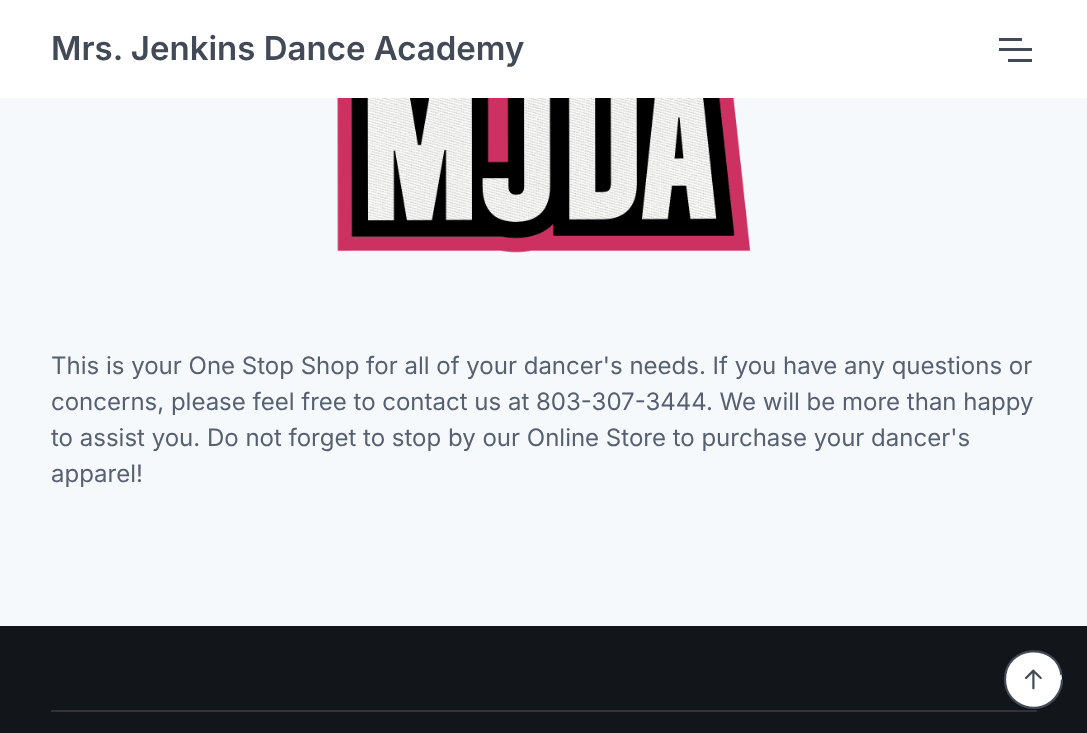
(async () => {
  const canvas = document.querySelector("canvas");
  canvas.width = 1087;
  canvas.height = 733;
  const ctx = canvas.getContext("2d");
  ctx.miterLimit = 4;
  ctx.fontKerning = "normal";
  async function loadImage(src) {
    const img = new Image();
    img.src = src;
    await img.decode();
    return img;
  }
  let path;

  ctx.fillStyle = "#f6f9fc";
  ctx.fillRect(0, 0, 1087, 733);
  for (const [x, y, w, h, color] of [
    [0, 0, 1087, 98, "#ffffff"],
    [999, 48, 33, 3, "#434a57"],
    [999, 38, 23, 3, "#434a57"],
    [1008, 59, 24, 3, "#434a57"],
  ]) {
    ctx.fillStyle = color;
    ctx.fillRect(x, y, w, h);
  }
  ctx.drawImage(await loadImage("img/1.png"), 337, 98, 413, 155);
  ctx.fillStyle = "#121519";
  ctx.fillRect(0, 626, 1087, 107);
  ctx.fillStyle = "#313337";
  ctx.fillRect(51, 710, 986, 2);
  ctx.fillStyle = "#ffffff";
  ctx.beginPath();
  ctx.arc(1033.5, 679.5, 28.5, 0, Math.PI * 2);
  ctx.fill();
  ctx.drawImage(await loadImage("img/2.png"), 1024, 669, 18, 21);
  path = new Path2D("M1062 679.5C1062 685 1060.5 690.5 1057 695.5C1041.5 718.5 1005 707.5 1005 679.5C1005 644.5 1056.5 641 1061.5 675");
  ctx.strokeStyle = "#434a57";
  ctx.lineWidth = 2.2;
  ctx.stroke(path);
  ctx.font = "600 33px Inter";
  ctx.fillStyle = "#434a57";
  ctx.fillText("Mrs. Jenkins Dance Academy", 51, 60);
  ctx.font = "24px Inter";
  ctx.fillStyle = "#576071";
  for (const [text, x, y] of [
    ["This is your One Stop Shop for all of your dancer's needs. If you have any questions or", 51, 374],
    ["concerns, please feel free to contact us at 803-307-3444. We will be more than happy", 51, 410],
    ["to assist you. Do not forget to stop by our Online Store to purchase your dancer's", 51, 446],
    ["apparel!", 51, 482],
  ]) {
    ctx.fillText(text, x, y);
  }
})();
